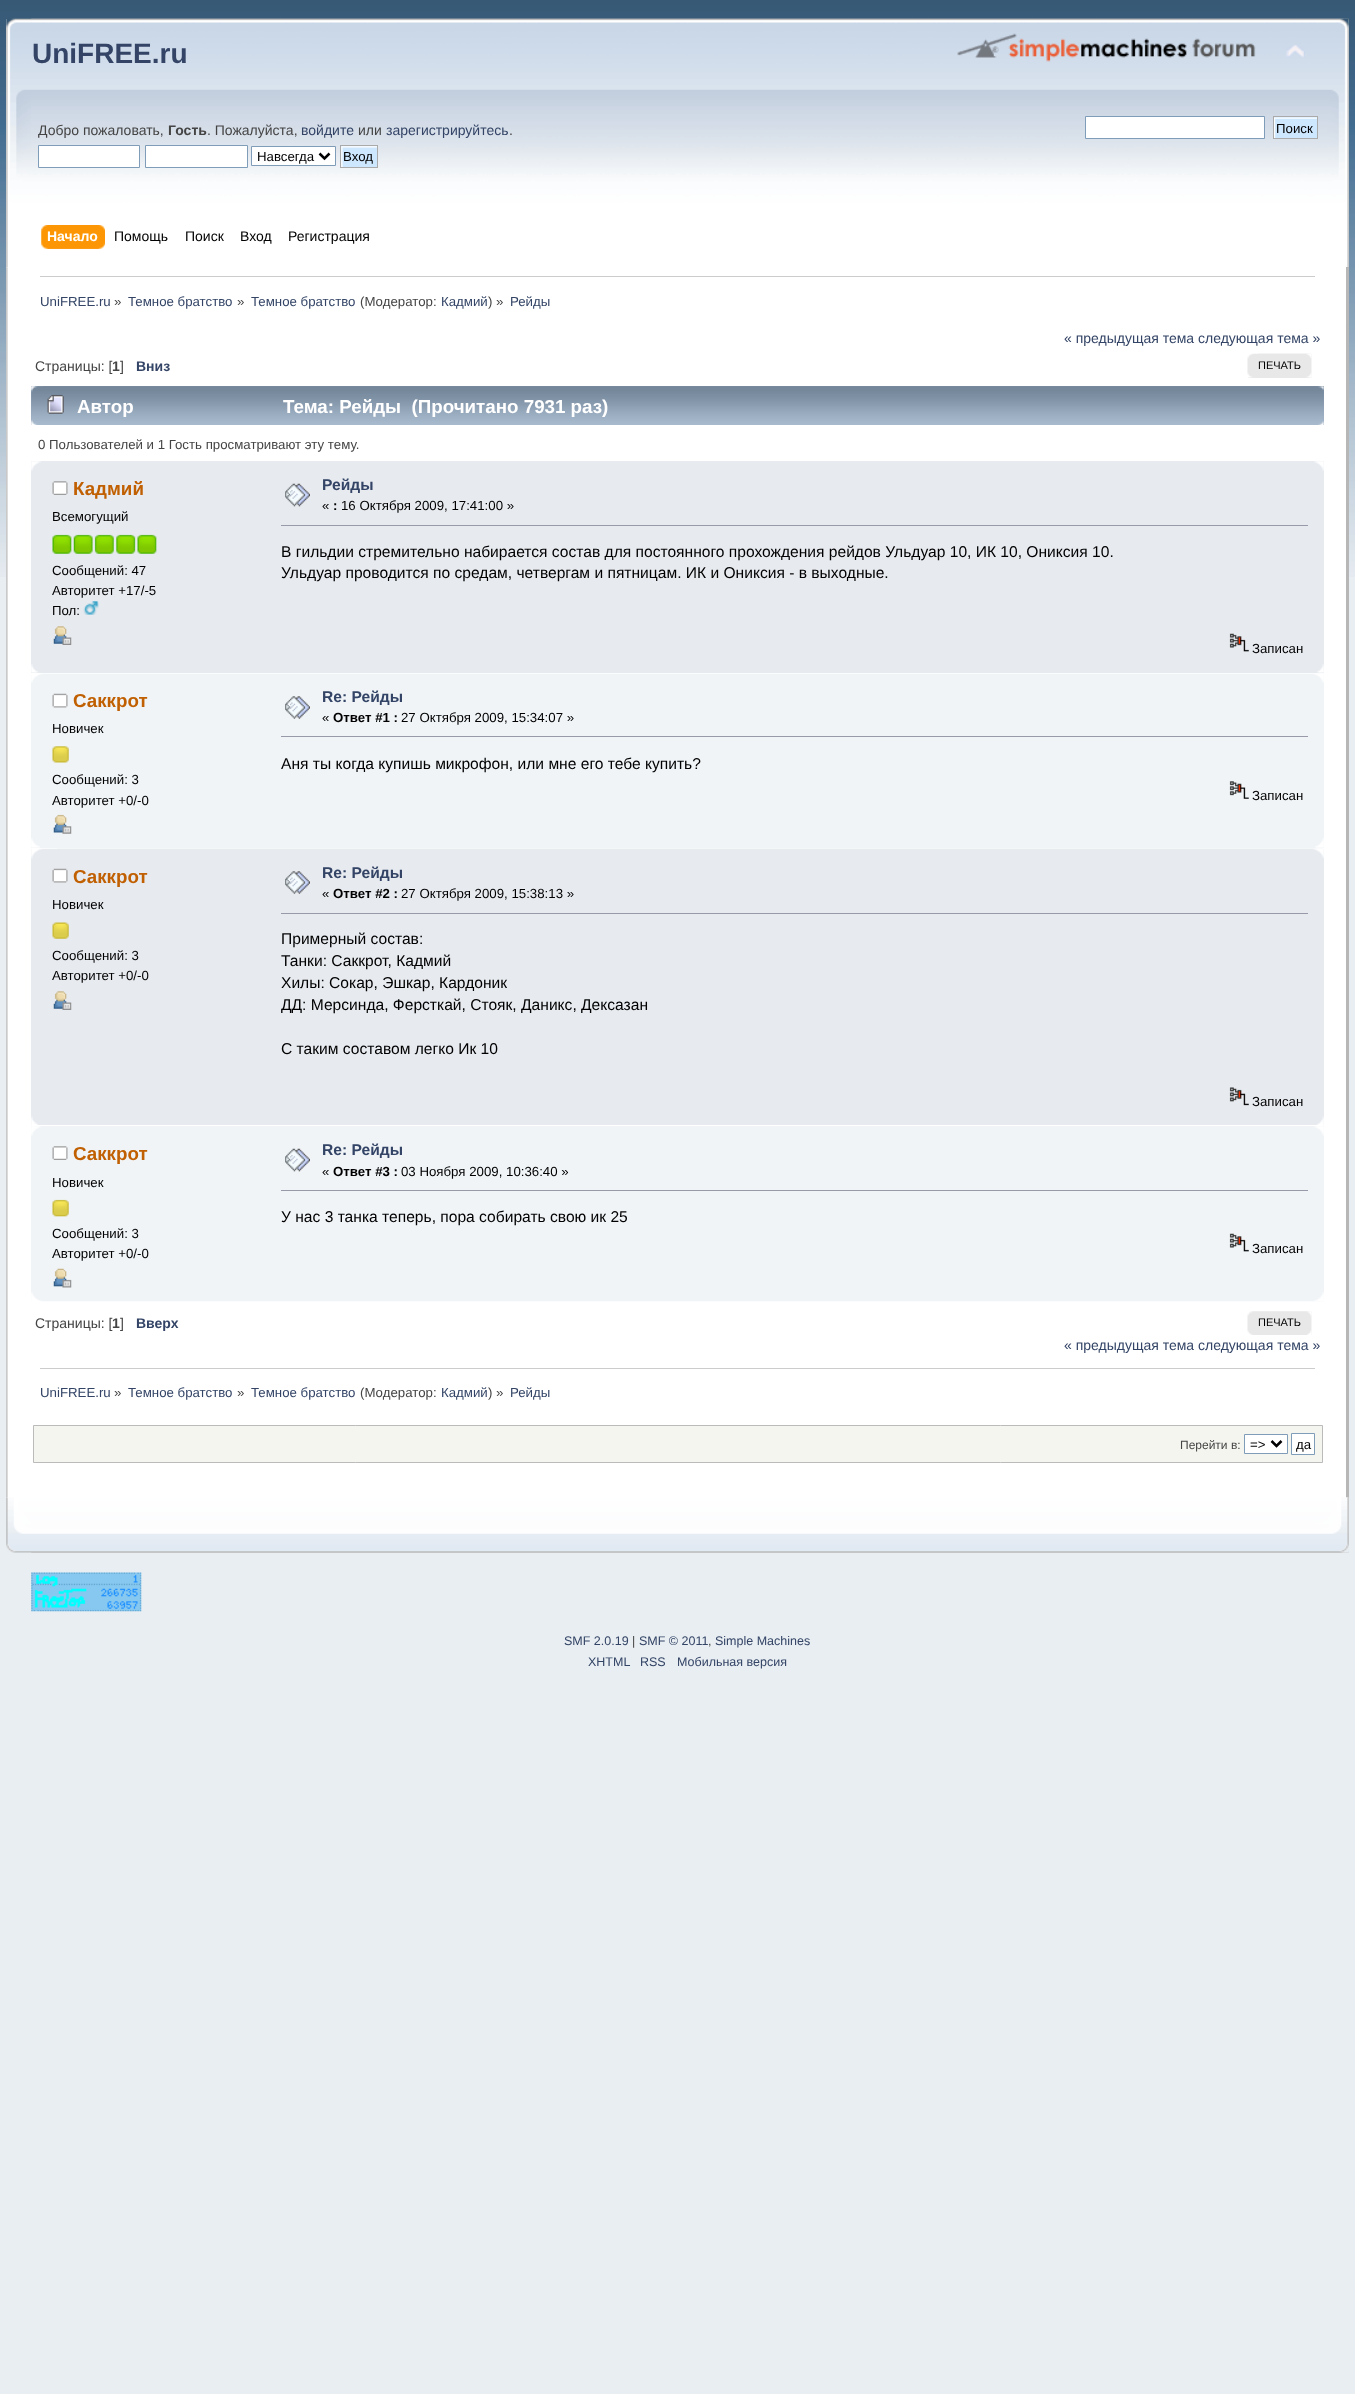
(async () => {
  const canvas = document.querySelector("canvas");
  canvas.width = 1355;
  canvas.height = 2394;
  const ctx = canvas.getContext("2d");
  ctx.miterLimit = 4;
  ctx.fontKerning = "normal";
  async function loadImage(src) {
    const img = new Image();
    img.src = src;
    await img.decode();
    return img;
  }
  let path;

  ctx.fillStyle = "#e9eef2";
  ctx.fillRect(0, 0, 1355, 2394);
  ctx.drawImage(await loadImage("img/1.png"), 0, 0, 1355, 577);
  ctx.fillStyle = "#fefefe";
  ctx.fillRect(6, 19, 1343, 249);
  ctx.drawImage(await loadImage("img/2.png"), 6, 18, 1343, 250);
  ctx.drawImage(await loadImage("img/3.png"), 31, 18, 1318, 250);
  ctx.drawImage(await loadImage("img/4.png"), 957, 33, 299, 29);
  ctx.drawImage(await loadImage("img/5.png"), 1286, 45, 19, 13);
  ctx.fillStyle = "#ffffff";
  ctx.beginPath();
  ctx.rect(38.5, 145.5, 101, 22);
  ctx.fill();
  ctx.strokeStyle = "#7f9db9";
  ctx.stroke();
  ctx.beginPath();
  ctx.rect(145.5, 145.5, 102, 22);
  ctx.fill();
  ctx.stroke();
  ctx.beginPath();
  ctx.rect(251.5, 146.5, 84, 19);
  ctx.fill();
  ctx.stroke();
  path = new Path2D("M319.5 153.5L324.5 158.5L329.5 153.5");
  ctx.strokeStyle = "#000000";
  ctx.lineWidth = 2.5;
  ctx.stroke(path);
  ctx.fillStyle = "#cde7ff";
  ctx.fillRect(341, 146, 36, 21);
  ctx.drawImage(await loadImage("img/6.png"), 341, 146, 36, 21);
  ctx.strokeStyle = "#aaaaaa";
  ctx.lineWidth = 1;
  ctx.strokeRect(340.5, 145.5, 37, 22);
  ctx.fillStyle = "#ffffff";
  ctx.beginPath();
  ctx.rect(1085.5, 116.5, 179, 22);
  ctx.fill();
  ctx.strokeStyle = "#7f9db9";
  ctx.stroke();
  ctx.fillStyle = "#cde7ff";
  ctx.fillRect(1274, 117, 43, 1);
  ctx.drawImage(await loadImage("img/7.png"), 1274, 117, 43, 21);
  ctx.strokeStyle = "#aaaaaa";
  ctx.strokeRect(1273.5, 116.5, 44, 22);
  ctx.drawImage(await loadImage("img/8.png"), 47, 225, 58, 24);
  ctx.drawImage(await loadImage("img/9.png"), 41, 225, 58, 24);
  ctx.fillStyle = "#ffffff";
  ctx.fillRect(6, 268, 1340, 1230);
  ctx.drawImage(await loadImage("img/10.png"), 6, 267, 1340, 1231);
  for (const [x, y, w, h, color] of [
    [1346, 267, 3, 1231, "#b7b7b7"],
    [40, 276, 1275, 1, "#cccccc"],
    [1248, 377, 63, 1, "#e8e8e8"],
  ]) {
    ctx.fillStyle = color;
    ctx.fillRect(x, y, w, h);
  }
  ctx.drawImage(await loadImage("img/11.png"), 1247, 353, 65, 25);
  ctx.drawImage(await loadImage("img/12.png"), 1258, 353, 54, 25);
  ctx.fillStyle = "#99abbf";
  ctx.fillRect(31, 386, 1293, 39);
  ctx.drawImage(await loadImage("img/13.png"), 31, 386, 1293, 39);
  ctx.drawImage(await loadImage("img/14.png"), 43, 386, 1281, 39);
  ctx.drawImage(await loadImage("img/15.png"), 47, 394, 17, 20);
  ctx.fillStyle = "#e7eaef";
  ctx.fillRect(31, 461, 1293, 212);
  ctx.drawImage(await loadImage("img/16.png"), 31, 461, 10, 10);
  ctx.drawImage(await loadImage("img/17.png"), 1314, 461, 10, 10);
  ctx.drawImage(await loadImage("img/18.png"), 52, 481, 16, 14);
  ctx.drawImage(await loadImage("img/19.png"), 52, 534, 20, 20);
  ctx.drawImage(await loadImage("img/20.png"), 73, 534, 20, 20);
  ctx.drawImage(await loadImage("img/21.png"), 94, 534, 20, 20);
  ctx.drawImage(await loadImage("img/22.png"), 116, 534, 20, 20);
  ctx.drawImage(await loadImage("img/19.png"), 137, 534, 20, 20);
  ctx.drawImage(await loadImage("img/23.png"), 83, 601, 16, 14);
  ctx.drawImage(await loadImage("img/24.png"), 53, 626, 19, 19);
  ctx.drawImage(await loadImage("img/25.png"), 285, 483, 25, 24);
  ctx.fillStyle = "#9999aa";
  ctx.fillRect(281, 525, 1027, 1);
  ctx.drawImage(await loadImage("img/26.png"), 1229, 633, 20, 19);
  ctx.drawImage(await loadImage("img/27.png"), 31, 664, 7, 9);
  ctx.drawImage(await loadImage("img/28.png"), 1317, 664, 7, 9);
  ctx.fillStyle = "#f0f4f7";
  ctx.fillRect(31, 674, 1293, 174);
  ctx.drawImage(await loadImage("img/29.png"), 31, 673, 1292, 10);
  ctx.drawImage(await loadImage("img/30.png"), 1314, 674, 10, 9);
  ctx.drawImage(await loadImage("img/31.png"), 52, 693, 16, 15);
  ctx.drawImage(await loadImage("img/32.png"), 52, 746, 17, 17);
  ctx.drawImage(await loadImage("img/33.png"), 53, 814, 19, 20);
  ctx.drawImage(await loadImage("img/34.png"), 285, 696, 25, 23);
  ctx.fillStyle = "#9999aa";
  ctx.fillRect(281, 736, 1027, 1);
  ctx.drawImage(await loadImage("img/35.png"), 1229, 781, 20, 18);
  ctx.drawImage(await loadImage("img/36.png"), 31, 838, 9, 10);
  ctx.drawImage(await loadImage("img/37.png"), 1315, 838, 9, 10);
  ctx.fillStyle = "#e7eaef";
  ctx.fillRect(31, 849, 1293, 276);
  ctx.drawImage(await loadImage("img/38.png"), 31, 848, 1292, 11);
  ctx.drawImage(await loadImage("img/39.png"), 57, 848, 1267, 10);
  ctx.drawImage(await loadImage("img/40.png"), 52, 868, 16, 15);
  ctx.drawImage(await loadImage("img/41.png"), 52, 922, 17, 17);
  ctx.drawImage(await loadImage("img/24.png"), 53, 991, 19, 19);
  ctx.drawImage(await loadImage("img/42.png"), 285, 871, 25, 23);
  ctx.fillStyle = "#9999aa";
  ctx.fillRect(281, 913, 1027, 1);
  ctx.drawImage(await loadImage("img/43.png"), 1229, 1087, 20, 19);
  ctx.drawImage(await loadImage("img/44.png"), 31, 1116, 7, 9);
  ctx.drawImage(await loadImage("img/45.png"), 1317, 1116, 7, 9);
  ctx.fillStyle = "#f0f4f7";
  ctx.fillRect(31, 1126, 1293, 175);
  ctx.drawImage(await loadImage("img/46.png"), 31, 1126, 10, 10);
  ctx.drawImage(await loadImage("img/47.png"), 1314, 1126, 10, 10);
  ctx.drawImage(await loadImage("img/48.png"), 52, 1146, 16, 14);
  ctx.drawImage(await loadImage("img/49.png"), 52, 1199, 17, 18);
  ctx.drawImage(await loadImage("img/50.png"), 53, 1268, 19, 20);
  ctx.drawImage(await loadImage("img/51.png"), 285, 1148, 25, 24);
  ctx.fillStyle = "#9999aa";
  ctx.fillRect(281, 1190, 1027, 1);
  ctx.drawImage(await loadImage("img/52.png"), 1229, 1233, 20, 19);
  ctx.drawImage(await loadImage("img/53.png"), 31, 1292, 1292, 10);
  ctx.drawImage(await loadImage("img/54.png"), 1314, 1292, 10, 9);
  ctx.drawImage(await loadImage("img/55.png"), 1247, 1311, 65, 24);
  ctx.drawImage(await loadImage("img/56.png"), 1307, 1311, 5, 24);
  ctx.fillStyle = "#cccccc";
  ctx.fillRect(40, 1368, 1275, 1);
  ctx.fillStyle = "#f5f5f0";
  ctx.beginPath();
  ctx.rect(33.5, 1425.5, 1289, 37);
  ctx.fill();
  ctx.strokeStyle = "#bbbbbb";
  ctx.stroke();
  ctx.fillStyle = "#ffffff";
  ctx.beginPath();
  ctx.rect(1244.5, 1434.5, 43, 19);
  ctx.fill();
  ctx.strokeStyle = "#7f9db9";
  ctx.stroke();
  path = new Path2D("M1271.5 1441L1276.5 1446L1281.5 1441");
  ctx.strokeStyle = "#000000";
  ctx.lineWidth = 2.5;
  ctx.stroke(path);
  ctx.beginPath();
  ctx.rect(1291.5, 1433.5, 23, 21);
  ctx.fill();
  ctx.strokeStyle = "#7f9db9";
  ctx.lineWidth = 1;
  ctx.stroke();
  ctx.drawImage(await loadImage("img/57.png"), 6, 1497, 1343, 56);
  ctx.drawImage(await loadImage("img/58.png"), 31, 1497, 1318, 56);
  ctx.drawImage(await loadImage("img/59.png"), 31, 1572, 111, 40);
  ctx.font = "bold 28px Liberation Sans";
  ctx.fillStyle = "#334466";
  ctx.fillText("UniFREE.ru", 32, 63);
  ctx.font = "14px Liberation Sans";
  ctx.fillStyle = "#444444";
  ctx.fillText("Добро пожаловать,", 38, 135);
  ctx.font = "bold 14px Liberation Sans";
  ctx.fillText("Гость", 168, 135);
  ctx.font = "14px Liberation Sans";
  ctx.fillText(". Пожалуйста,", 207, 135);
  ctx.fillStyle = "#334466";
  ctx.fillText("войдите", 301, 135);
  ctx.fillStyle = "#444444";
  ctx.fillText("или", 358, 135);
  ctx.fillStyle = "#334466";
  ctx.fillText("зарегистрируйтесь", 386, 135);
  ctx.fillStyle = "#444444";
  ctx.fillText(".", 509, 135);
  ctx.font = "13.25px Liberation Sans";
  ctx.fillStyle = "#000000";
  for (const [text, x, y] of [
    ["Навсегда", 257, 161],
    ["Вход", 343, 161],
    ["Поиск", 1276, 133],
  ]) {
    ctx.fillText(text, x, y);
  }
  ctx.font = "bold 14px Liberation Sans";
  ctx.fillStyle = "#ffffff";
  ctx.fillText("Начало", 47, 241);
  ctx.font = "14px Liberation Sans";
  ctx.fillStyle = "#000000";
  for (const [text, x, y] of [
    ["Помощь", 114, 241],
    ["Поиск", 185, 241],
    ["Вход", 240, 241],
    ["Регистрация", 288, 241],
  ]) {
    ctx.fillText(text, x, y);
  }
  ctx.font = "13.25px Liberation Sans";
  ctx.fillStyle = "#334466";
  ctx.fillText("UniFREE.ru", 40, 306);
  ctx.fillStyle = "#444444";
  ctx.fillText("»", 114, 306);
  ctx.fillStyle = "#334466";
  ctx.fillText("Темное братство", 128, 306);
  ctx.fillStyle = "#444444";
  ctx.fillText("»", 237, 306);
  ctx.fillStyle = "#334466";
  ctx.fillText("Темное братство", 251, 306);
  ctx.fillStyle = "#444444";
  ctx.fillText("(Модератор:", 360, 306);
  ctx.fillStyle = "#334466";
  ctx.fillText("Кадмий", 441, 306);
  ctx.fillStyle = "#444444";
  ctx.fillText(") »", 488, 306);
  ctx.fillStyle = "#334466";
  ctx.fillText("Рейды", 510, 306);
  ctx.font = "14px Liberation Sans";
  ctx.fillText("« предыдущая тема следующая тема »", 1064, 343);
  ctx.fillStyle = "#444444";
  ctx.fillText("Страницы: [", 35, 371);
  ctx.font = "bold 14px Liberation Sans";
  ctx.fillText("1", 112, 371);
  ctx.font = "14px Liberation Sans";
  ctx.fillText("]", 120, 371);
  ctx.font = "bold 14px Liberation Sans";
  ctx.fillStyle = "#334466";
  ctx.fillText("Вниз", 136, 371);
  ctx.font = "11px Liberation Sans";
  ctx.fillStyle = "#000000";
  ctx.fillText("ПЕЧАТЬ", 1258, 369);
  ctx.font = "bold 18.75px Liberation Sans";
  ctx.fillStyle = "#ffffff";
  ctx.fillText("Автор", 77, 413);
  ctx.fillText("Тема: Рейды  (Прочитано 7931 раз)", 283, 413);
  ctx.font = "13.25px Liberation Sans";
  ctx.fillStyle = "#444444";
  ctx.fillText("0 Пользователей и 1 Гость просматривают эту тему.", 38, 449);
  ctx.font = "bold 18.75px Liberation Sans";
  ctx.fillStyle = "#c06002";
  ctx.fillText("Кадмий", 73, 495);
  ctx.font = "13.25px Liberation Sans";
  ctx.fillStyle = "#000000";
  for (const [text, x, y] of [
    ["Всемогущий", 52, 521],
    ["Сообщений: 47", 52, 575],
    ["Авторитет +17/-5", 52, 595],
    ["Пол:", 52, 615],
  ]) {
    ctx.fillText(text, x, y);
  }
  ctx.font = "bold 15.6px Liberation Sans";
  ctx.fillStyle = "#334466";
  ctx.fillText("Рейды", 322, 490);
  ctx.font = "13.25px Liberation Sans";
  ctx.fillStyle = "#000000";
  ctx.fillText("«", 322, 510);
  ctx.font = "bold 13.25px Liberation Sans";
  ctx.fillText(":", 333, 510);
  ctx.font = "13.25px Liberation Sans";
  ctx.fillText("16 Октября 2009, 17:41:00 »", 341, 510);
  ctx.font = "15.6px Liberation Sans";
  ctx.fillText("В гильдии стремительно набирается состав для постоянного прохождения рейдов Ульдуар 10, ИК 10, Ониксия 10.", 281, 557);
  ctx.fillText("Ульдуар проводится по средам, четвергам и пятницам. ИК и Ониксия - в выходные.", 281, 578);
  ctx.font = "13.25px Liberation Sans";
  ctx.fillText("Записан", 1252, 653);
  ctx.font = "bold 18.75px Liberation Sans";
  ctx.fillStyle = "#c06002";
  ctx.fillText("Саккрот", 73, 707);
  ctx.font = "13.25px Liberation Sans";
  ctx.fillStyle = "#000000";
  for (const [text, x, y] of [
    ["Новичек", 52, 733],
    ["Сообщений: 3", 52, 784],
    ["Авторитет +0/-0", 52, 805],
  ]) {
    ctx.fillText(text, x, y);
  }
  ctx.font = "bold 15.6px Liberation Sans";
  ctx.fillStyle = "#334466";
  ctx.fillText("Re: Рейды", 322, 702);
  ctx.font = "13.25px Liberation Sans";
  ctx.fillStyle = "#000000";
  ctx.fillText("«", 322, 722);
  ctx.font = "bold 13.25px Liberation Sans";
  ctx.fillText("Ответ #1 :", 333, 722);
  ctx.font = "13.25px Liberation Sans";
  ctx.fillText("27 Октября 2009, 15:34:07 »", 401, 722);
  ctx.font = "15.6px Liberation Sans";
  ctx.fillText("Аня ты когда купишь микрофон, или мне его тебе купить?", 281, 769);
  ctx.font = "13.25px Liberation Sans";
  ctx.fillText("Записан", 1252, 800);
  ctx.font = "bold 18.75px Liberation Sans";
  ctx.fillStyle = "#c06002";
  ctx.fillText("Саккрот", 73, 883);
  ctx.font = "13.25px Liberation Sans";
  ctx.fillStyle = "#000000";
  for (const [text, x, y] of [
    ["Новичек", 52, 909],
    ["Сообщений: 3", 52, 960],
    ["Авторитет +0/-0", 52, 980],
  ]) {
    ctx.fillText(text, x, y);
  }
  ctx.font = "bold 15.6px Liberation Sans";
  ctx.fillStyle = "#334466";
  ctx.fillText("Re: Рейды", 322, 878);
  ctx.font = "13.25px Liberation Sans";
  ctx.fillStyle = "#000000";
  ctx.fillText("«", 322, 898);
  ctx.font = "bold 13.25px Liberation Sans";
  ctx.fillText("Ответ #2 :", 333, 898);
  ctx.font = "13.25px Liberation Sans";
  ctx.fillText("27 Октября 2009, 15:38:13 »", 401, 898);
  ctx.font = "15.6px Liberation Sans";
  for (const [text, x, y] of [
    ["Примерный состав:", 281, 944],
    ["Танки: Саккрот, Кадмий", 281, 966],
    ["Хилы: Сокар, Эшкар, Кардоник", 281, 988],
    ["ДД: Мерсинда, Ферсткай, Стояк, Даникс, Дексазан", 281, 1010],
    ["С таким составом легко Ик 10", 281, 1054],
  ]) {
    ctx.fillText(text, x, y);
  }
  ctx.font = "13.25px Liberation Sans";
  ctx.fillText("Записан", 1252, 1106);
  ctx.font = "bold 18.75px Liberation Sans";
  ctx.fillStyle = "#c06002";
  ctx.fillText("Саккрот", 73, 1160);
  ctx.font = "13.25px Liberation Sans";
  ctx.fillStyle = "#000000";
  for (const [text, x, y] of [
    ["Новичек", 52, 1187],
    ["Сообщений: 3", 52, 1238],
    ["Авторитет +0/-0", 52, 1258],
  ]) {
    ctx.fillText(text, x, y);
  }
  ctx.font = "bold 15.6px Liberation Sans";
  ctx.fillStyle = "#334466";
  ctx.fillText("Re: Рейды", 322, 1155);
  ctx.font = "13.25px Liberation Sans";
  ctx.fillStyle = "#000000";
  ctx.fillText("«", 322, 1176);
  ctx.font = "bold 13.25px Liberation Sans";
  ctx.fillText("Ответ #3 :", 333, 1176);
  ctx.font = "13.25px Liberation Sans";
  ctx.fillText("03 Ноября 2009, 10:36:40 »", 401, 1176);
  ctx.font = "15.6px Liberation Sans";
  ctx.fillText("У нас 3 танка теперь, пора собирать свою ик 25", 281, 1222);
  ctx.font = "13.25px Liberation Sans";
  ctx.fillText("Записан", 1252, 1253);
  ctx.font = "14px Liberation Sans";
  ctx.fillStyle = "#444444";
  ctx.fillText("Страницы: [", 35, 1328);
  ctx.font = "bold 14px Liberation Sans";
  ctx.fillText("1", 112, 1328);
  ctx.font = "14px Liberation Sans";
  ctx.fillText("]", 120, 1328);
  ctx.font = "bold 14px Liberation Sans";
  ctx.fillStyle = "#334466";
  ctx.fillText("Вверх", 136, 1328);
  ctx.font = "11px Liberation Sans";
  ctx.fillStyle = "#000000";
  ctx.fillText("ПЕЧАТЬ", 1258, 1326);
  ctx.font = "14px Liberation Sans";
  ctx.fillStyle = "#334466";
  ctx.fillText("« предыдущая тема следующая тема »", 1064, 1350);
  ctx.font = "13.25px Liberation Sans";
  ctx.fillText("UniFREE.ru", 40, 1397);
  ctx.fillStyle = "#444444";
  ctx.fillText("»", 114, 1397);
  ctx.fillStyle = "#334466";
  ctx.fillText("Темное братство", 128, 1397);
  ctx.fillStyle = "#444444";
  ctx.fillText("»", 237, 1397);
  ctx.fillStyle = "#334466";
  ctx.fillText("Темное братство", 251, 1397);
  ctx.fillStyle = "#444444";
  ctx.fillText("(Модератор:", 360, 1397);
  ctx.fillStyle = "#334466";
  ctx.fillText("Кадмий", 441, 1397);
  ctx.fillStyle = "#444444";
  ctx.fillText(") »", 488, 1397);
  ctx.fillStyle = "#334466";
  ctx.fillText("Рейды", 510, 1397);
  ctx.font = "12px Liberation Sans";
  ctx.fillStyle = "#444444";
  ctx.fillText("Перейти в:", 1180, 1449);
  ctx.font = "13.25px Liberation Sans";
  ctx.fillStyle = "#000000";
  ctx.fillText("=>", 1250, 1449);
  ctx.fillText("да", 1296, 1449);
  ctx.font = "12.5px Liberation Sans";
  ctx.fillStyle = "#334466";
  ctx.fillText("SMF 2.0.19", 564, 1645);
  ctx.fillStyle = "#444444";
  ctx.fillText("|", 632, 1645);
  ctx.fillStyle = "#334466";
  ctx.fillText("SMF © 2011", 639, 1645);
  ctx.fillStyle = "#444444";
  ctx.fillText(",", 708, 1645);
  ctx.fillStyle = "#334466";
  for (const [text, x, y] of [
    ["Simple Machines", 715, 1645],
    ["XHTML", 588, 1666],
    ["RSS", 640, 1666],
    ["Мобильная версия", 677, 1666],
  ]) {
    ctx.fillText(text, x, y);
  }
})();
